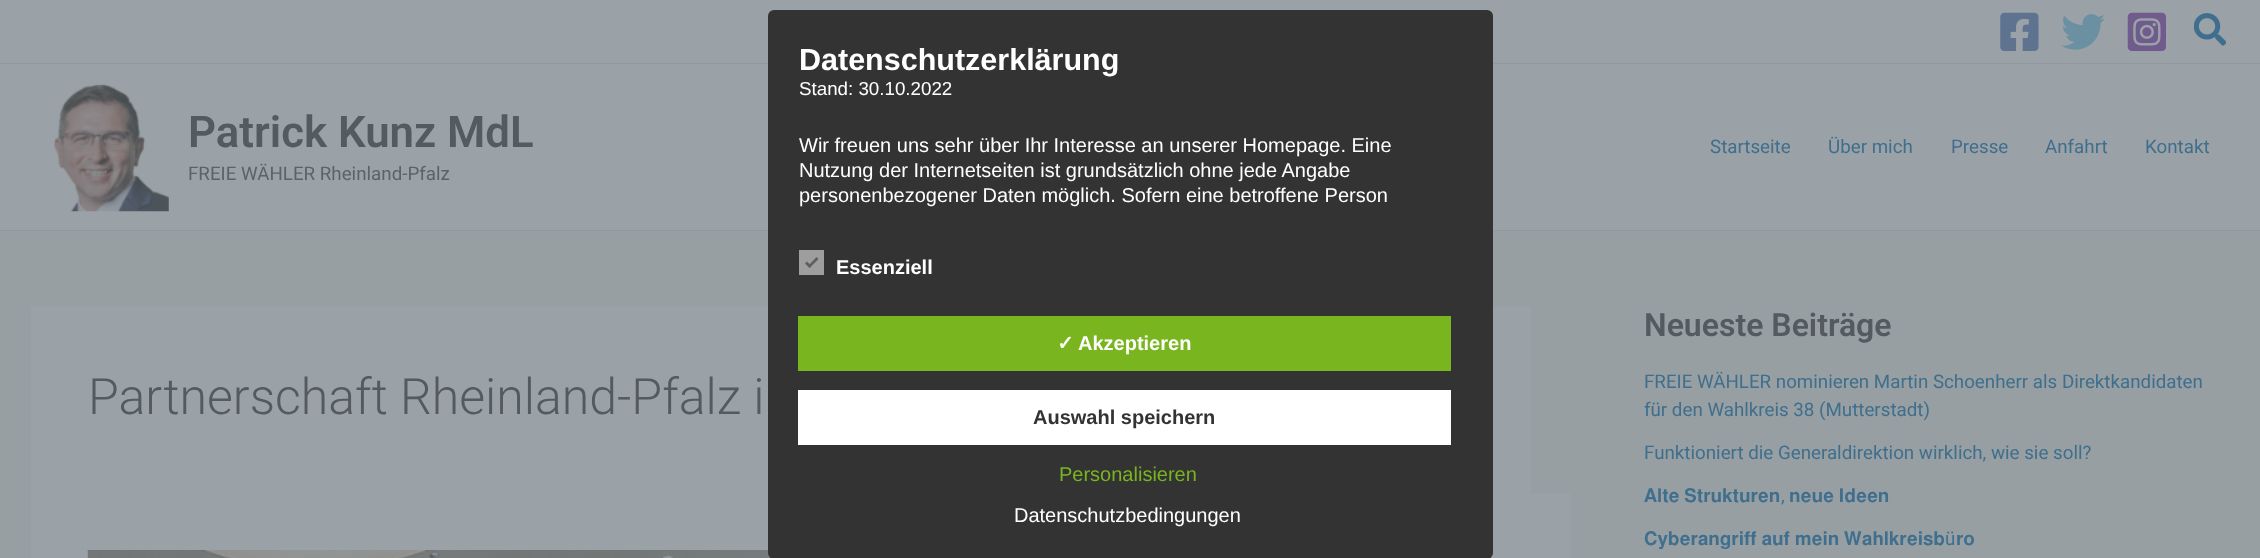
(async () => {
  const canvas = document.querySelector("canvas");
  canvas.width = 2260;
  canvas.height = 558;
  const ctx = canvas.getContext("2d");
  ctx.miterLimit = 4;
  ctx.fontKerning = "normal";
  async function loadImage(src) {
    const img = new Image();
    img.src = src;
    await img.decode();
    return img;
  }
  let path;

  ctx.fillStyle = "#979fa3";
  ctx.fillRect(0, 0, 2260, 558);
  for (const [x, y, w, h, color] of [
    [0, 0, 2260, 63, "#9ba2a7"],
    [0, 63, 2260, 1, "#91999d"],
    [0, 64, 2260, 166, "#9ba2a7"],
    [0, 230, 2260, 1, "#91999d"],
    [31, 306, 1500, 188, "#9ba2a7"],
    [31, 494, 1539, 64, "#9ba2a7"],
  ]) {
    ctx.fillStyle = color;
    ctx.fillRect(x, y, w, h);
  }
  ctx.drawImage(await loadImage("img/6.png"), 87, 550, 684, 8);
  ctx.fillStyle = "#333333";
  ctx.beginPath();
  ctx.roundRect(768, 10, 725, 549, 6);
  ctx.fill();
  ctx.fillStyle = "#9e9e9e";
  ctx.fillRect(799, 250, 25, 25);
  ctx.fillStyle = "#5e5e5e";
  path = new Path2D("M816.5 257L818.5 259L809.5 268L808 266Z");
  ctx.fill(path);
  path = new Path2D("M807 261.5L811.5 266L809.5 268L805 263.5Z");
  ctx.fill(path);
  ctx.fillStyle = "#79b51f";
  ctx.fillRect(798, 316, 653, 55);
  ctx.fillStyle = "#ffffff";
  ctx.fillRect(798, 390, 653, 55);
  ctx.drawImage(await loadImage("img/1.png"), 2000, 12, 39, 39);
  ctx.drawImage(await loadImage("img/2.png"), 2061, 14, 44, 36);
  ctx.drawImage(await loadImage("img/3.png"), 2127, 12, 39, 39);
  ctx.drawImage(await loadImage("img/4.png"), 2194, 13, 32, 33);
  ctx.drawImage(await loadImage("img/5.png"), 53, 83, 116, 129);
  ctx.font = "bold 30.5px Liberation Sans";
  ctx.fillText("Datenschutzerklärung", 799, 70);
  ctx.font = "18.75px Liberation Sans";
  ctx.fillText("Stand: 30.10.2022", 799, 95);
  ctx.font = "20px Liberation Sans";
  for (const [text, x, y] of [
    ["Wir freuen uns sehr über Ihr Interesse an unserer Homepage. Eine", 799, 152],
    ["Nutzung der Internetseiten ist grundsätzlich ohne jede Angabe", 799, 177],
    ["personenbezogener Daten möglich. Sofern eine betroffene Person", 799, 202],
  ]) {
    ctx.fillText(text, x, y);
  }
  ctx.font = "bold 20px Liberation Sans";
  ctx.fillText("Essenziell", 836, 274);
  ctx.font = "bold 20px DejaVu Sans";
  ctx.fillText("✓", 1057, 350);
  ctx.font = "bold 20px Liberation Sans";
  ctx.fillText("Akzeptieren", 1078, 350);
  ctx.fillStyle = "#333333";
  ctx.fillText("Auswahl speichern", 1033, 424);
  ctx.font = "20px Liberation Sans";
  ctx.fillStyle = "#79b51f";
  ctx.fillText("Personalisieren", 1059, 481);
  ctx.fillStyle = "#ffffff";
  ctx.fillText("Datenschutzbedingungen", 1014, 522);
  ctx.font = "600 43.75px Roboto";
  ctx.fillStyle = "#545b60";
  ctx.fillText("Patrick Kunz MdL", 188, 147);
  ctx.font = "18.75px Roboto";
  ctx.fillStyle = "#5a636b";
  ctx.fillText("FREIE WÄHLER Rheinland-Pfalz", 188, 180);
  ctx.fillStyle = "#3f6f8d";
  for (const [text, x, y] of [
    ["Startseite", 1710, 153],
    ["Über mich", 1828, 153],
    ["Presse", 1951, 153],
    ["Anfahrt", 2045, 153],
    ["Kontakt", 2145, 153],
  ]) {
    ctx.fillText(text, x, y);
  }
  ctx.font = "300 50px Roboto";
  ctx.fillStyle = "#545b60";
  ctx.fillText("Partnerschaft Rheinland-Pfalz i", 88, 414);
  ctx.font = "600 32px Roboto";
  ctx.fillText("Neueste Beiträge", 1644, 336);
  ctx.font = "18.75px Roboto";
  ctx.fillStyle = "#3f6f8d";
  for (const [text, x, y] of [
    ["FREIE WÄHLER nominieren Martin Schoenherr als Direktkandidaten", 1644, 388],
    ["für den Wahlkreis 38 (Mutterstadt)", 1644, 416],
    ["Funktioniert die Generaldirektion wirklich, wie sie soll?", 1644, 459],
  ]) {
    ctx.fillText(text, x, y);
  }
  ctx.font = "18.75px FreeSans";
  ctx.fillText("𝐀𝐥𝐭𝐞 𝐒𝐭𝐫𝐮𝐤𝐭𝐮𝐫𝐞𝐧", 1644, 502);
  ctx.font = "18.75px Roboto";
  ctx.fillText(",", 1781, 502);
  ctx.font = "18.75px FreeSans";
  ctx.fillText("𝐧𝐞𝐮𝐞 𝐈𝐝𝐞𝐞𝐧", 1789, 502);
  ctx.fillText("𝐂𝐲𝐛𝐞𝐫𝐚𝐧𝐠𝐫𝐢𝐟𝐟 𝐚𝐮𝐟 𝐦𝐞𝐢𝐧 𝐖𝐚𝐡𝐥𝐤𝐫𝐞𝐢𝐬𝐛", 1644, 545);
  ctx.font = "18.75px Roboto";
  ctx.fillText("ü", 1945, 545);
  ctx.font = "18.75px FreeSans";
  ctx.fillText("𝐫𝐨", 1956, 545);
})();
